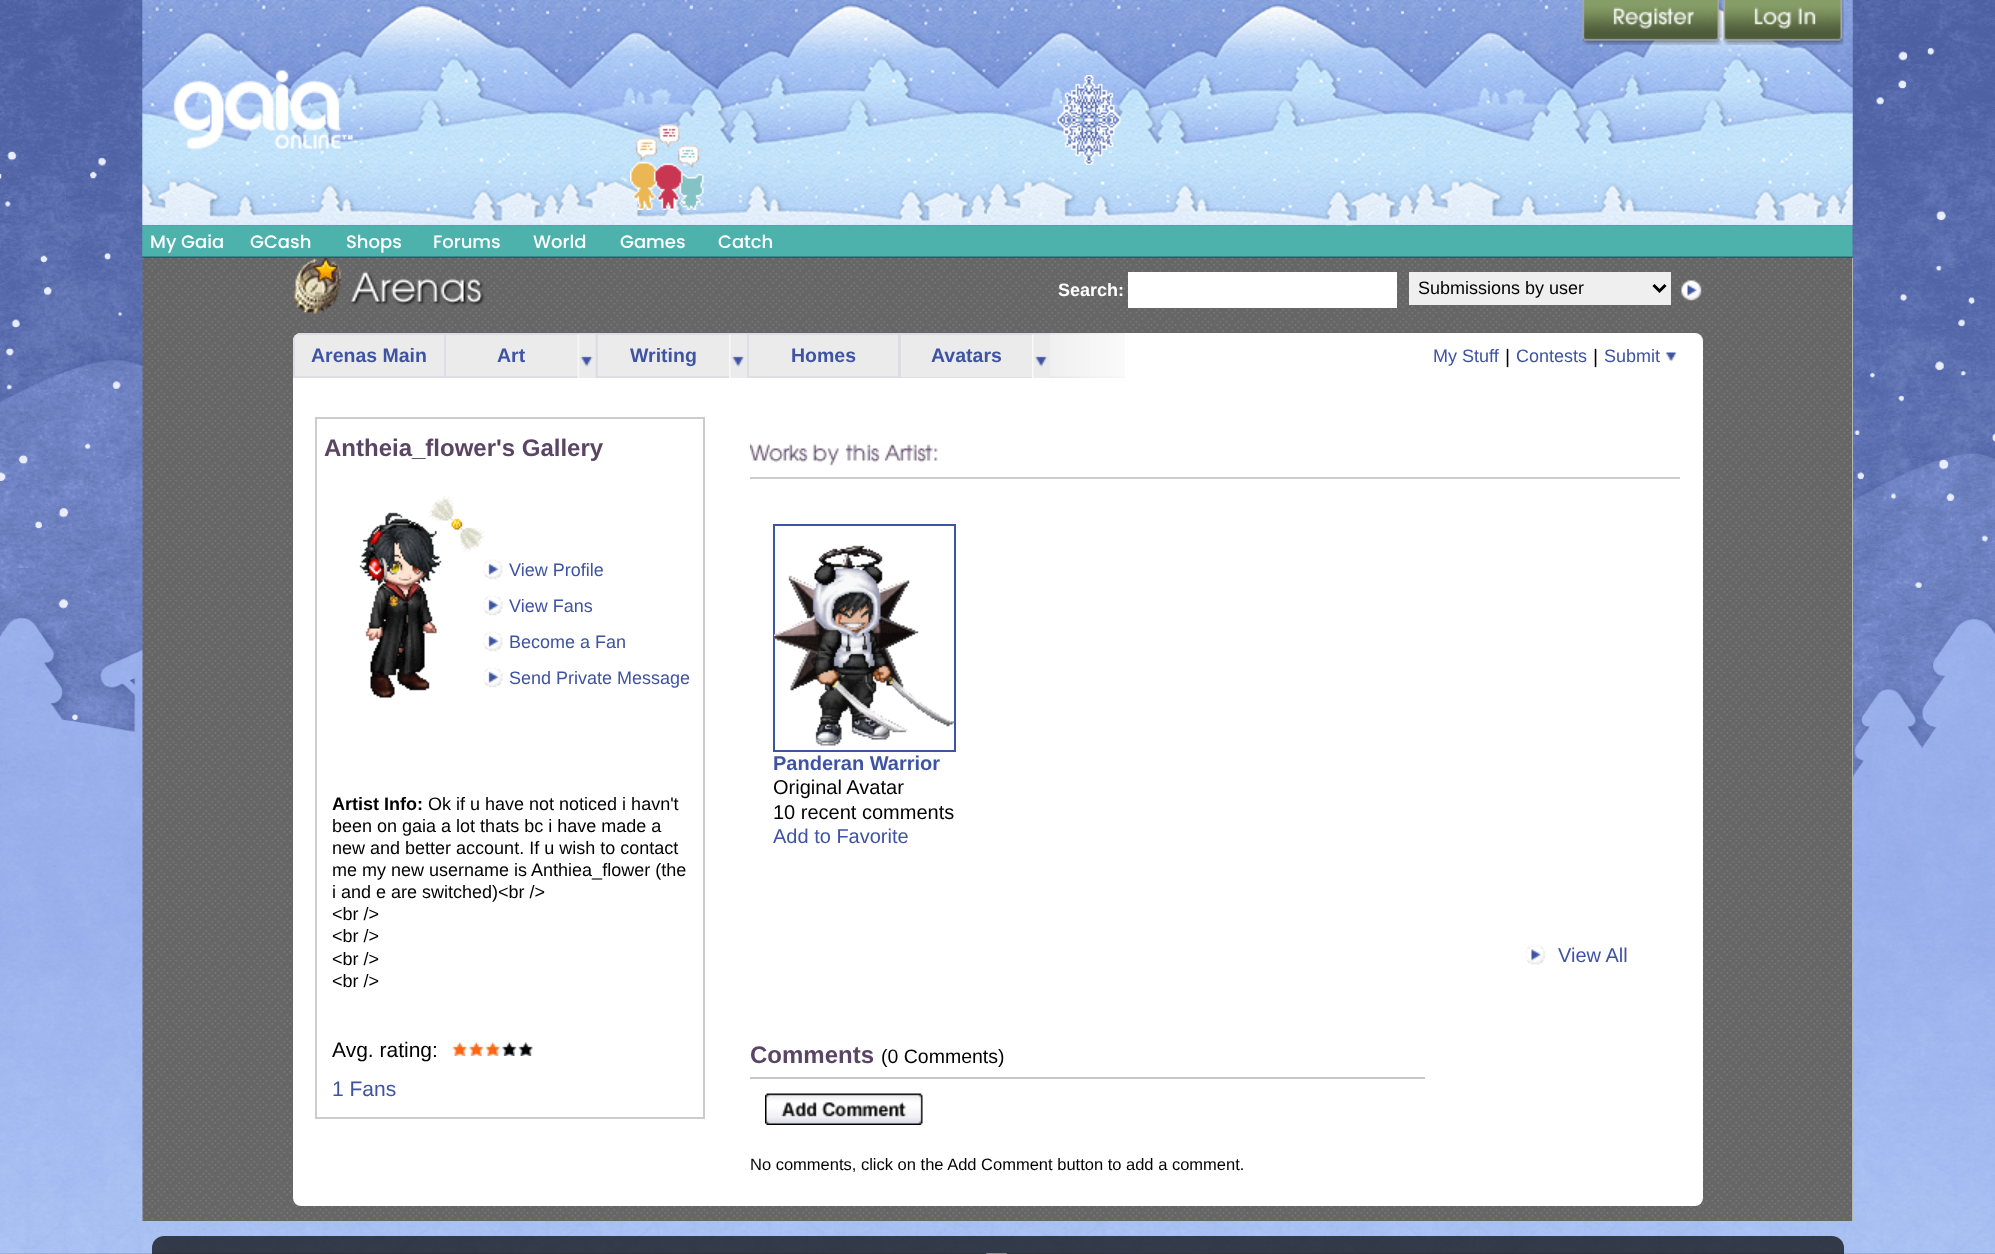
(async () => {
  const canvas = document.querySelector("canvas");
  canvas.width = 1995;
  canvas.height = 1254;
  const ctx = canvas.getContext("2d");
  ctx.miterLimit = 4;
  ctx.fontKerning = "normal";
  async function loadImage(src) {
    const img = new Image();
    img.src = src;
    await img.decode();
    return img;
  }
  let path;

  ctx.fillStyle = "#ffffff";
  ctx.fillRect(0, 0, 1995, 1254);
  ctx.drawImage(await loadImage("img/1.png"), 0, 1253, 1995, 1);
  ctx.drawImage(await loadImage("img/2.png"), 0, 0, 1995, 1254);
  ctx.drawImage(await loadImage("img/3.png"), 142, 0, 1711, 225);
  ctx.drawImage(await loadImage("img/4.png"), 142, 0, 1711, 225);
  ctx.drawImage(await loadImage("img/5.png"), 1582, 0, 140, 45);
  ctx.drawImage(await loadImage("img/6.png"), 1723, 0, 121, 45);
  ctx.drawImage(await loadImage("img/7.png"), 173, 69, 180, 81);
  ctx.drawImage(await loadImage("img/8.png"), 630, 124, 74, 86);
  ctx.drawImage(await loadImage("img/9.png"), 1057, 75, 64, 90);
  ctx.drawImage(await loadImage("img/10.png"), 142, 225, 1711, 33);
  ctx.drawImage(await loadImage("img/11.png"), 142, 226, 1, 31);
  ctx.drawImage(await loadImage("img/12.png"), 232, 225, 4, 33);
  ctx.drawImage(await loadImage("img/13.png"), 325, 225, 4, 33);
  ctx.drawImage(await loadImage("img/14.png"), 418, 225, 4, 33);
  ctx.drawImage(await loadImage("img/15.png"), 511, 225, 4, 33);
  ctx.drawImage(await loadImage("img/16.png"), 604, 225, 4, 33);
  ctx.drawImage(await loadImage("img/17.png"), 697, 225, 4, 33);
  ctx.drawImage(await loadImage("img/18.png"), 790, 225, 4, 33);
  ctx.fillRect(1852, 258, 1, 963);
  ctx.drawImage(await loadImage("img/19.png"), 142, 258, 1711, 963);
  ctx.drawImage(await loadImage("img/20.png"), 293, 258, 192, 56);
  ctx.fillRect(1128, 272, 269, 36);
  ctx.fillStyle = "#efefef";
  ctx.fillRect(1409, 272, 262, 33);
  path = new Path2D("M1653.5 285L1659.5 291L1665.5 285");
  ctx.strokeStyle = "#000000";
  ctx.lineWidth = 3;
  ctx.stroke(path);
  ctx.drawImage(await loadImage("img/21.png"), 1681, 280, 21, 21);
  ctx.fillStyle = "#ffffff";
  ctx.beginPath();
  ctx.roundRect(293, 333, 1410, 873, 8);
  ctx.fill();
  ctx.fillStyle = "#ebebeb";
  ctx.beginPath();
  ctx.roundRect(293, 333, 153, 45, [8, 0, 0, 0]);
  ctx.fill();
  ctx.fillStyle = "#dcdee3";
  path = new Path2D("M301 333C299 333 297 334 296 335H444V376H295V336C294 337 293 339 293 341V378H446V333Z");
  ctx.fill(path);
  ctx.fillStyle = "#ebebeb";
  ctx.fillRect(446, 335, 132, 41);
  ctx.strokeStyle = "#dcdee3";
  ctx.lineWidth = 2;
  ctx.strokeRect(445, 334, 151, 43);
  ctx.drawImage(await loadImage("img/22.png"), 577, 334, 19, 44);
  ctx.fillRect(598, 335, 131, 41);
  ctx.strokeRect(597, 334, 151, 43);
  ctx.drawImage(await loadImage("img/23.png"), 729, 334, 18, 44);
  ctx.beginPath();
  ctx.rect(748, 334, 151, 43);
  ctx.fill();
  ctx.stroke();
  for (const [x, y, w, h, color] of [
    [901, 335, 131, 42, "#ebebeb"],
    [899, 333, 151, 2, "#dcdee3"],
    [899, 377, 133, 1, "#dcdee3"],
    [900, 333, 1, 45, "#dcdee3"],
  ]) {
    ctx.fillStyle = color;
    ctx.fillRect(x, y, w, h);
  }
  ctx.drawImage(await loadImage("img/23.png"), 1032, 334, 18, 44);
  ctx.drawImage(await loadImage("img/24.png"), 1050, 333, 75, 45);
  ctx.drawImage(await loadImage("img/25.png"), 1665, 352, 12, 10);
  ctx.strokeStyle = "#cccccc";
  ctx.strokeRect(316, 418, 388, 700);
  ctx.drawImage(await loadImage("img/27.png"), 483, 559, 20, 21);
  ctx.drawImage(await loadImage("img/27.png"), 483, 595, 20, 21);
  ctx.drawImage(await loadImage("img/27.png"), 483, 631, 20, 21);
  ctx.drawImage(await loadImage("img/27.png"), 483, 667, 20, 21);
  ctx.drawImage(await loadImage("img/26.png"), 359, 496, 126, 202);
  ctx.drawImage(await loadImage("img/28.png"), 452, 1042, 15, 14);
  ctx.drawImage(await loadImage("img/29.png"), 469, 1042, 15, 14);
  ctx.drawImage(await loadImage("img/28.png"), 485, 1042, 15, 14);
  ctx.drawImage(await loadImage("img/30.png"), 502, 1042, 15, 14);
  ctx.drawImage(await loadImage("img/31.png"), 518, 1042, 15, 14);
  ctx.fillStyle = "#cccccc";
  ctx.fillRect(750, 477, 930, 2);
  ctx.drawImage(await loadImage("img/32.png"), 750, 443, 188, 23);
  ctx.strokeStyle = "#3e53a2";
  ctx.strokeRect(774, 525, 181, 226);
  ctx.drawImage(await loadImage("img/33.png"), 774, 545, 180, 201);
  ctx.drawImage(await loadImage("img/34.png"), 1525, 945, 21, 20);
  ctx.fillStyle = "#c5c7c9";
  ctx.fillRect(750, 1077, 675, 2);
  ctx.drawImage(await loadImage("img/35.png"), 765, 1093, 158, 32);
  ctx.fillStyle = "rgba(0, 0, 0, 0.7)";
  ctx.beginPath();
  ctx.roundRect(152, 1236, 1692, 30, 12);
  ctx.fill();
  ctx.beginPath();
  ctx.roundRect(981, 1254, 31, 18, 15.5);
  ctx.strokeStyle = "#c5c6c9";
  ctx.stroke();
  ctx.beginPath();
  ctx.roundRect(981, 1254, 31, 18, 15.5);
  ctx.strokeStyle = "#888888";
  ctx.stroke();
  ctx.font = "500 18px Poppins";
  ctx.fillStyle = "#ffffff";
  for (const [text, x, y] of [
    ["My Gaia", 150, 248],
    ["GCash", 250, 248],
    ["Shops", 346, 248],
    ["Forums", 433, 248],
    ["World", 533, 248],
    ["Games", 620, 248],
    ["Catch", 718, 248],
  ]) {
    ctx.fillText(text, x, y);
  }
  ctx.font = "bold 18px Liberation Sans";
  ctx.fillText("Search:", 1058, 296);
  ctx.font = "18px Liberation Sans";
  ctx.fillStyle = "#000000";
  ctx.fillText("Submissions by user", 1418, 294);
  ctx.font = "bold 19.5px Liberation Sans";
  ctx.fillStyle = "#3e53a2";
  for (const [text, x, y] of [
    ["Arenas Main", 311, 362],
    ["Art", 497, 362],
    ["Writing", 630, 362],
    ["Homes", 791, 362],
    ["Avatars", 931, 362],
  ]) {
    ctx.fillText(text, x, y);
  }
  ctx.font = "18px Liberation Sans";
  ctx.fillText("My Stuff", 1433, 362);
  ctx.font = "19.5px Liberation Sans";
  ctx.fillStyle = "#000000";
  ctx.fillText("|", 1505, 363);
  ctx.font = "18px Liberation Sans";
  ctx.fillStyle = "#3e53a2";
  ctx.fillText("Contests", 1516, 362);
  ctx.font = "19.5px Liberation Sans";
  ctx.fillStyle = "#000000";
  ctx.fillText("|", 1593, 363);
  ctx.font = "18px Liberation Sans";
  ctx.fillStyle = "#3e53a2";
  ctx.fillText("Submit", 1604, 362);
  ctx.font = "bold 24px Liberation Sans";
  ctx.fillStyle = "#5a4564";
  ctx.fillText("Antheia_flower's Gallery", 324, 456);
  ctx.font = "18px Liberation Sans";
  ctx.fillStyle = "#3e53a2";
  for (const [text, x, y] of [
    ["View Profile", 509, 576],
    ["View Fans", 509, 612],
    ["Become a Fan", 509, 648],
    ["Send Private Message", 509, 684],
  ]) {
    ctx.fillText(text, x, y);
  }
  ctx.font = "bold 18px Liberation Sans";
  ctx.fillStyle = "#000000";
  ctx.fillText("Artist Info:", 332, 810);
  ctx.font = "18px Liberation Sans";
  for (const [text, x, y] of [
    ["Ok if u have not noticed i havn't", 428, 810],
    ["been on gaia a lot thats bc i have made a", 332, 832],
    ["new and better account. If u wish to contact", 332, 854],
    ["me my new username is Anthiea_flower (the", 332, 876],
    ["i and e are switched)<br />", 332, 898],
    ["<br />", 332, 920],
    ["<br />", 332, 942],
    ["<br />", 332, 965],
    ["<br />", 332, 987],
  ]) {
    ctx.fillText(text, x, y);
  }
  ctx.font = "21px Liberation Sans";
  ctx.fillText("Avg. rating:", 332, 1057);
  ctx.fillStyle = "#3e53a2";
  ctx.fillText("1 Fans", 332, 1096);
  ctx.font = "bold 20px Liberation Sans";
  ctx.fillText("Panderan Warrior", 773, 770);
  ctx.font = "20px Liberation Sans";
  ctx.fillStyle = "#000000";
  ctx.fillText("Original Avatar", 773, 794);
  ctx.fillText("10 recent comments", 773, 819);
  ctx.fillStyle = "#3e53a2";
  ctx.fillText("Add to Favorite", 773, 843);
  ctx.fillText("View All", 1558, 962);
  ctx.font = "bold 24px Liberation Sans";
  ctx.fillStyle = "#5a4564";
  ctx.fillText("Comments", 750, 1063);
  ctx.font = "19.5px Liberation Sans";
  ctx.fillStyle = "#000000";
  ctx.fillText("(0 Comments)", 881, 1063);
  ctx.font = "16.5px Liberation Sans";
  ctx.fillText("No comments, click on the Add Comment button to add a comment.", 750, 1170);
})();
